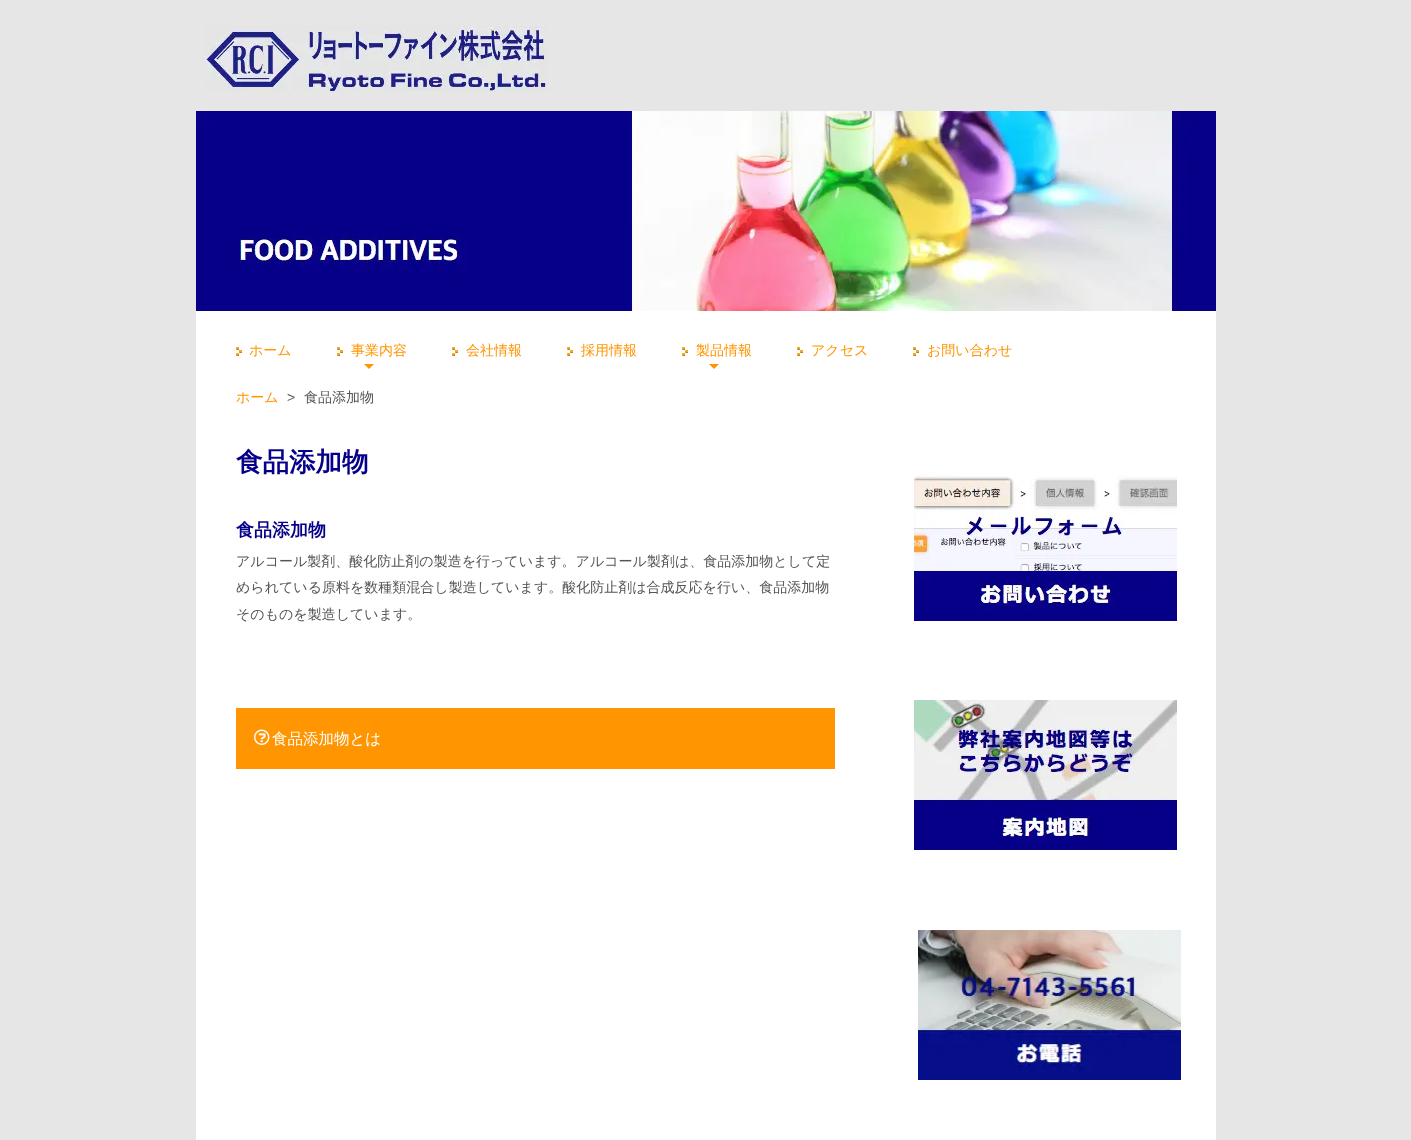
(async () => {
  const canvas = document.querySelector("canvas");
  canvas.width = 1411;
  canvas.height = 1140;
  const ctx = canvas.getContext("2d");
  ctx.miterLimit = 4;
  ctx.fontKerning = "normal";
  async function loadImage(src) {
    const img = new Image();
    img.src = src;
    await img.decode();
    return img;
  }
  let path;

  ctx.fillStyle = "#e6e6e6";
  ctx.fillRect(0, 0, 1411, 1140);
  ctx.drawImage(await loadImage("img/1.png"), 204, 26, 344, 65);
  ctx.fillStyle = "#ffffff";
  ctx.fillRect(196, 311, 1020, 829);
  ctx.drawImage(await loadImage("img/2.png"), 196, 111, 1020, 200);
  ctx.drawImage(await loadImage("img/3.png"), 236, 347, 6, 9);
  ctx.drawImage(await loadImage("img/3.png"), 337, 347, 6, 9);
  ctx.fillStyle = "#ff9500";
  path = new Path2D("M364 364H374L369 369Z");
  ctx.fill(path);
  ctx.drawImage(await loadImage("img/3.png"), 452, 347, 6, 9);
  ctx.drawImage(await loadImage("img/3.png"), 567, 347, 6, 9);
  ctx.drawImage(await loadImage("img/3.png"), 682, 347, 6, 9);
  path = new Path2D("M709 364H719L714 369Z");
  ctx.fill(path);
  ctx.drawImage(await loadImage("img/3.png"), 797, 347, 6, 9);
  ctx.drawImage(await loadImage("img/3.png"), 913, 347, 6, 9);
  ctx.fillRect(236, 708, 599, 61);
  ctx.drawImage(await loadImage("img/4.png"), 254, 729, 16, 16);
  ctx.drawImage(await loadImage("img/5.png"), 914, 475, 263, 146);
  ctx.drawImage(await loadImage("img/6.png"), 914, 700, 263, 150);
  ctx.drawImage(await loadImage("img/7.png"), 918, 930, 263, 150);
  ctx.font = "500 14px WenQuanYi Zen Hei";
  for (const [text, x, y] of [
    ["ホーム", 249, 355],
    ["事業内容", 351, 355],
    ["会社情報", 466, 355],
    ["採用情報", 581, 355],
    ["製品情報", 696, 355],
    ["アクセス", 811, 355],
    ["お問い合わせ", 927, 355],
    ["ホーム", 236, 402],
  ]) {
    ctx.fillText(text, x, y);
  }
  ctx.font = "14px Liberation Sans";
  ctx.fillStyle = "#555555";
  ctx.fillText(">", 287, 402);
  ctx.font = "500 14px WenQuanYi Zen Hei";
  ctx.fillText("食品添加物", 304, 402);
  ctx.font = "bold 26.5px WenQuanYi Zen Hei";
  ctx.fillStyle = "#060088";
  ctx.fillText("食品添加物", 236, 471);
  ctx.font = "bold 18px WenQuanYi Zen Hei";
  ctx.fillText("食品添加物", 236, 536);
  ctx.font = "500 14px WenQuanYi Zen Hei";
  ctx.fillStyle = "#555555";
  for (const [text, x, y] of [
    ["アルコール製剤、酸化防止剤の製造を行っています。アルコール製剤は、食品添加物として定", 236, 566],
    ["められている原料を数種類混合し製造しています。酸化防止剤は合成反応を行い、食品添加物", 236, 592],
    ["そのものを製造しています。", 236, 619],
  ]) {
    ctx.fillText(text, x, y);
  }
  ctx.font = "500 15.5px WenQuanYi Zen Hei";
  ctx.fillStyle = "#ffffff";
  ctx.fillText("食品添加物とは", 272, 744);
})();
